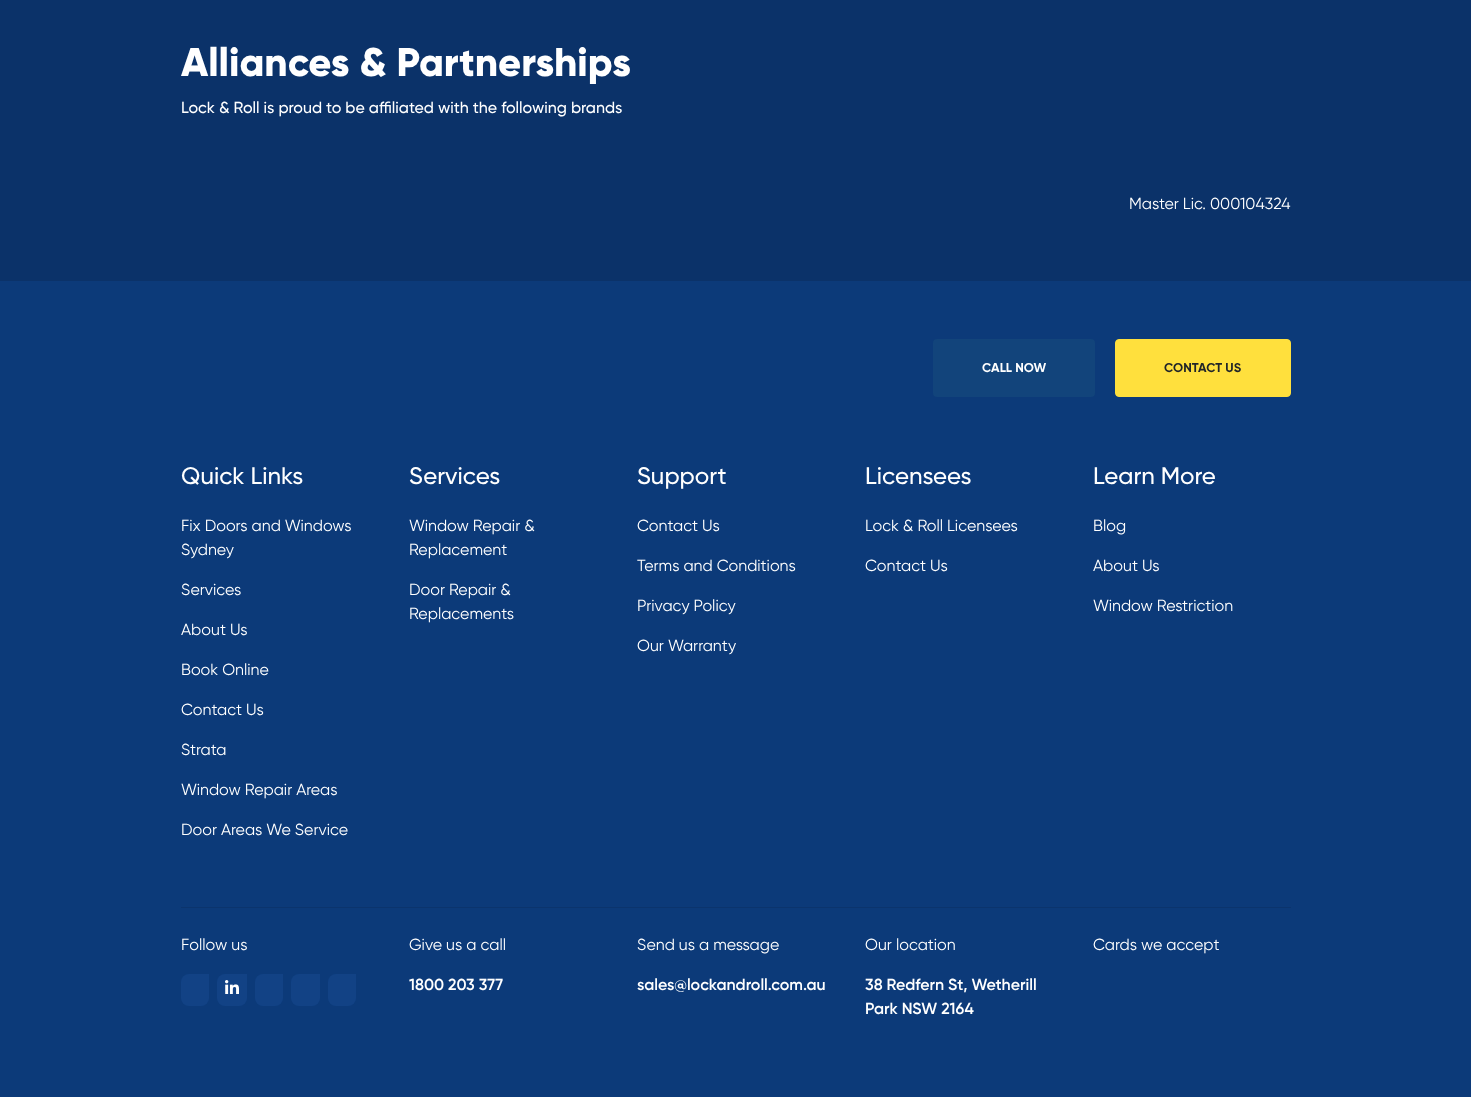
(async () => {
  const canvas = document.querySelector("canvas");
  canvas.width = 1471;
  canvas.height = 1097;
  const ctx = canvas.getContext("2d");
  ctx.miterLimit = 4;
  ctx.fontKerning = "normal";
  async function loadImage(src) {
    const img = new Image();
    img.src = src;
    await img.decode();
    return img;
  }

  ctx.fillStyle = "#0b3269";
  ctx.fillRect(0, 0, 1471, 1097);
  ctx.fillStyle = "#0c3a79";
  ctx.fillRect(0, 281, 1471, 816);
  ctx.fillStyle = "#12447b";
  ctx.beginPath();
  ctx.roundRect(933, 339, 162, 58, 4);
  ctx.fill();
  ctx.fillStyle = "#ffe03d";
  ctx.beginPath();
  ctx.roundRect(1115.5, 339.5, 175, 57, 3.5);
  ctx.fill();
  ctx.strokeStyle = "#ffe03d";
  ctx.stroke();
  ctx.fillStyle = "#0b346d";
  ctx.fillRect(181, 907, 1110, 1);
  ctx.fillStyle = "#124285";
  ctx.beginPath();
  ctx.roundRect(181, 974, 28, 32, [8, 0, 8, 8]);
  ctx.fill();
  ctx.beginPath();
  ctx.roundRect(217, 974, 30, 32, [8, 0, 8, 8]);
  ctx.fill();
  ctx.drawImage(await loadImage("img/1.png"), 225, 980, 14, 14);
  ctx.beginPath();
  ctx.roundRect(255, 974, 28, 32, [8, 0, 8, 8]);
  ctx.fill();
  ctx.beginPath();
  ctx.roundRect(291, 974, 29, 32, [8, 0, 8, 8]);
  ctx.fill();
  ctx.beginPath();
  ctx.roundRect(328, 974, 28, 32, [8, 0, 8, 8]);
  ctx.fill();
  ctx.font = "800 40px Gilroy";
  ctx.fillStyle = "#ffffff";
  ctx.fillText("Alliances & Partnerships", 181, 76);
  ctx.font = "500 16px Gilroy";
  ctx.fillText("Lock & Roll is proud to be affiliated with the following brands", 181, 113);
  ctx.font = "16px Gilroy";
  ctx.fillText("Master Lic. 000104324", 1129, 209);
  ctx.font = "bold 12.75px Gilroy";
  ctx.fillText("CALL NOW", 982, 372);
  ctx.fillStyle = "#212529";
  ctx.fillText("CONTACT US", 1164, 372);
  ctx.font = "500 24px Gilroy";
  ctx.fillStyle = "#ffffff";
  ctx.fillText("Quick Links", 181, 484);
  ctx.font = "16px Gilroy";
  for (const [text, x, y] of [
    ["Fix Doors and Windows", 181, 531],
    ["Sydney", 181, 555],
    ["Services", 181, 595],
    ["About Us", 181, 635],
    ["Book Online", 181, 675],
    ["Contact Us", 181, 715],
    ["Strata", 181, 755],
    ["Window Repair Areas", 181, 795],
    ["Door Areas We Service", 181, 835],
  ]) {
    ctx.fillText(text, x, y);
  }
  ctx.font = "500 24px Gilroy";
  ctx.fillText("Services", 409, 484);
  ctx.font = "16px Gilroy";
  for (const [text, x, y] of [
    ["Window Repair &", 409, 531],
    ["Replacement", 409, 555],
    ["Door Repair &", 409, 595],
    ["Replacements", 409, 619],
  ]) {
    ctx.fillText(text, x, y);
  }
  ctx.font = "500 24px Gilroy";
  ctx.fillText("Support", 637, 484);
  ctx.font = "16px Gilroy";
  for (const [text, x, y] of [
    ["Contact Us", 637, 531],
    ["Terms and Conditions", 637, 571],
    ["Privacy Policy", 637, 611],
    ["Our Warranty", 637, 651],
  ]) {
    ctx.fillText(text, x, y);
  }
  ctx.font = "500 24px Gilroy";
  ctx.fillText("Licensees", 865, 484);
  ctx.font = "16px Gilroy";
  ctx.fillText("Lock & Roll Licensees", 865, 531);
  ctx.fillText("Contact Us", 865, 571);
  ctx.font = "500 24px Gilroy";
  ctx.fillText("Learn More", 1093, 484);
  ctx.font = "16px Gilroy";
  for (const [text, x, y] of [
    ["Blog", 1093, 531],
    ["About Us", 1093, 571],
    ["Window Restriction", 1093, 611],
    ["Follow us", 181, 950],
    ["Give us a call", 409, 950],
  ]) {
    ctx.fillText(text, x, y);
  }
  ctx.font = "600 16px Gilroy";
  ctx.fillText("1800 203 377", 409, 990);
  ctx.font = "16px Gilroy";
  ctx.fillText("Send us a message", 637, 950);
  ctx.font = "600 16px Gilroy";
  ctx.fillText("sales@lockandroll.com.au", 637, 990);
  ctx.font = "16px Gilroy";
  ctx.fillText("Our location", 865, 950);
  ctx.font = "600 16px Gilroy";
  ctx.fillText("38 Redfern St, Wetherill", 865, 990);
  ctx.fillText("Park NSW 2164", 865, 1014);
  ctx.font = "16px Gilroy";
  ctx.fillText("Cards we accept", 1093, 950);
})();
